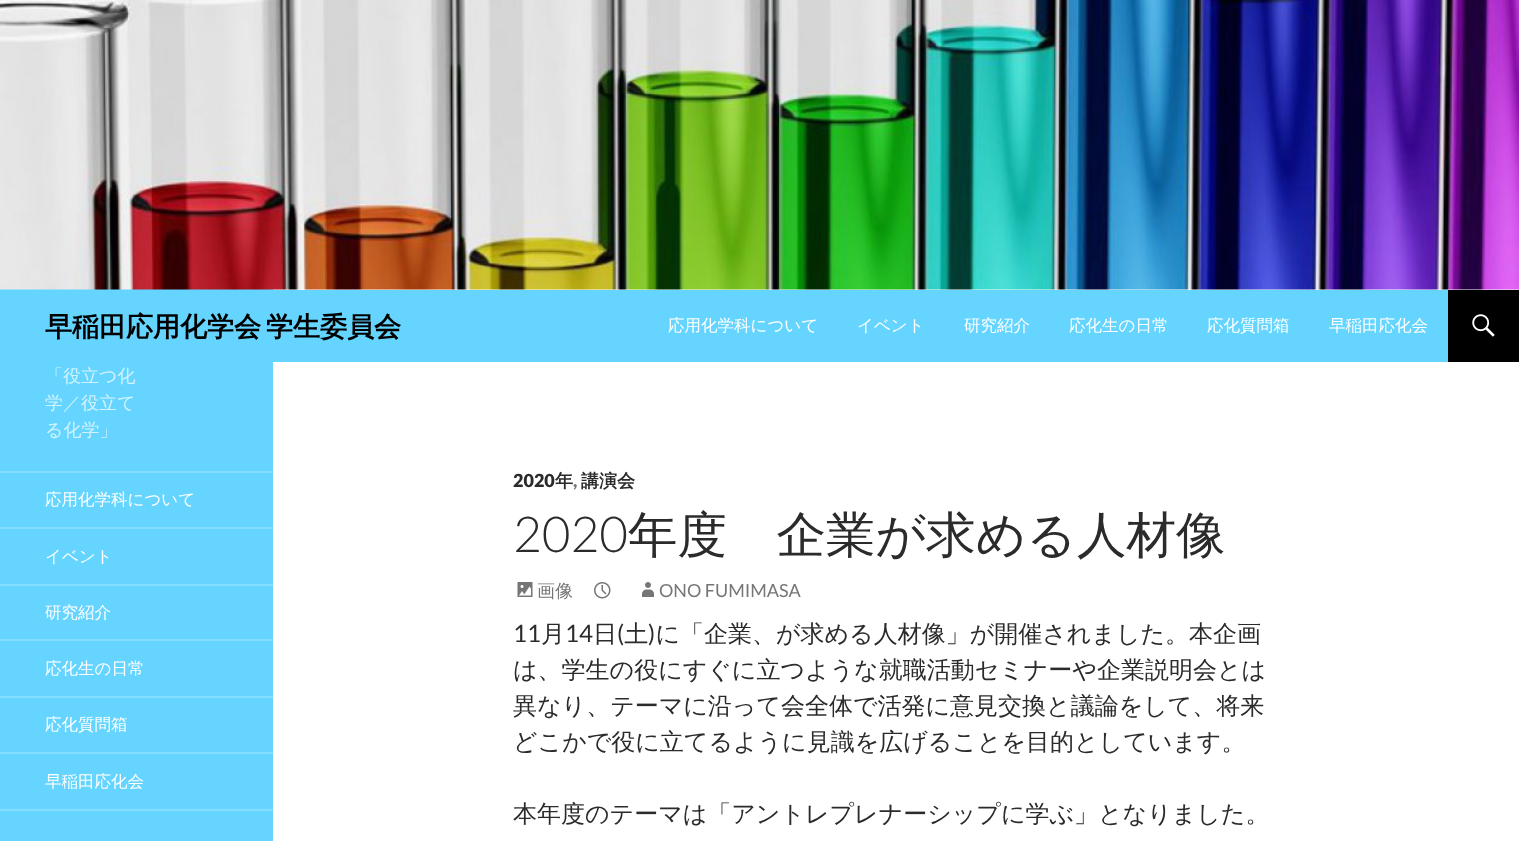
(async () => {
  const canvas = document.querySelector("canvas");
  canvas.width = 1519;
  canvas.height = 841;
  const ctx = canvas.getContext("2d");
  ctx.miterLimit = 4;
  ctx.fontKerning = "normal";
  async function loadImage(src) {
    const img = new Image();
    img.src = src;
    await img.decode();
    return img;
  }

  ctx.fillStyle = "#ffffff";
  ctx.fillRect(0, 0, 1519, 841);
  ctx.fillStyle = "#65d5ff";
  ctx.fillRect(0, 289, 273, 552);
  ctx.drawImage(await loadImage("img/1.png"), 0, 0, 1519, 290);
  ctx.fillRect(273, 290, 1175, 72);
  ctx.fillStyle = "#000000";
  ctx.fillRect(1448, 290, 71, 72);
  ctx.drawImage(await loadImage("img/2.png"), 1472, 314, 23, 23);
  for (const [x, y, w, h, color] of [
    [0, 809, 273, 2, "#84ddff"],
    [0, 471, 273, 2, "#84ddff"],
    [0, 527, 273, 2, "#84ddff"],
    [0, 584, 273, 2, "#84ddff"],
    [0, 639, 273, 2, "#84ddff"],
    [0, 696, 273, 2, "#84ddff"],
    [0, 752, 273, 2, "#84ddff"],
  ]) {
    ctx.fillStyle = color;
    ctx.fillRect(x, y, w, h);
  }
  ctx.drawImage(await loadImage("img/3.png"), 517, 582, 16, 15);
  ctx.drawImage(await loadImage("img/4.png"), 594, 582, 17, 17);
  ctx.drawImage(await loadImage("img/5.png"), 642, 582, 12, 15);
  ctx.wordSpacing = "-3px";
  ctx.font = "bold 27px WenQuanYi Zen Hei";
  ctx.fillStyle = "#000000";
  ctx.fillText("早稲田応用化学会 学生委員会", 45, 336);
  ctx.wordSpacing = "0px";
  ctx.font = "500 16.5px WenQuanYi Zen Hei";
  ctx.fillStyle = "#ffffff";
  for (const [text, x, y] of [
    ["応用化学科について", 668, 331],
    ["イベント", 857, 331],
    ["研究紹介", 964, 331],
    ["応化生の日常", 1069, 331],
    ["応化質問箱", 1207, 331],
    ["早稲田応化会", 1329, 331],
  ]) {
    ctx.fillText(text, x, y);
  }
  ctx.font = "500 18px WenQuanYi Zen Hei";
  ctx.fillStyle = "#d1f2ff";
  for (const [text, x, y] of [
    ["「役立つ化", 45, 382],
    ["学／役立て", 45, 409],
    ["る化学」", 45, 436],
  ]) {
    ctx.fillText(text, x, y);
  }
  ctx.font = "500 16.5px WenQuanYi Zen Hei";
  ctx.fillStyle = "#ffffff";
  for (const [text, x, y] of [
    ["応用化学科について", 45, 505],
    ["イベント", 45, 562],
    ["研究紹介", 45, 618],
    ["応化生の日常", 45, 674],
    ["応化質問箱", 45, 730],
    ["早稲田応化会", 45, 787],
  ]) {
    ctx.fillText(text, x, y);
  }
  ctx.font = "900 18px Lato";
  ctx.fillStyle = "#2b2b2b";
  ctx.fillText("2020", 513, 487);
  ctx.font = "bold 18px WenQuanYi Zen Hei";
  ctx.fillText("年", 555, 487);
  ctx.font = "900 18px Lato";
  ctx.fillStyle = "#767676";
  ctx.fillText(",", 573, 487);
  ctx.font = "bold 18px WenQuanYi Zen Hei";
  ctx.fillStyle = "#2b2b2b";
  ctx.fillText("講演会", 581, 487);
  ctx.font = "300 49.5px Lato";
  ctx.fillText("2020", 513, 552);
  ctx.font = "500 49.5px WenQuanYi Zen Hei";
  ctx.fillText("年度　企業が求める人材像", 628, 552);
  ctx.font = "500 18px WenQuanYi Zen Hei";
  ctx.fillStyle = "#767676";
  ctx.fillText("画像", 537, 597);
  ctx.font = "18px Lato";
  ctx.fillText("ONO FUMIMASA", 659, 597);
  ctx.font = "500 24px WenQuanYi Zen Hei";
  ctx.fillStyle = "#2b2b2b";
  ctx.fillText("月", 541, 642);
  ctx.fillText("日 土 に「企業、が求める人材像」が開催されました。本企画", 593, 642);
  ctx.font = "24px Lato";
  for (const [text, x, y] of [
    ["11", 513, 642],
    ["14", 565, 642],
    ["(", 617, 642],
    [")", 648, 642],
  ]) {
    ctx.fillText(text, x, y);
  }
  ctx.font = "500 24px WenQuanYi Zen Hei";
  for (const [text, x, y] of [
    ["は、学生の役にすぐに立つような就職活動セミナーや企業説明会とは", 513, 678],
    ["異なり、テーマに沿って会全体で活発に意見交換と議論をして、将来", 513, 714],
    ["どこかで役に立てるように見識を広げることを目的としています。", 513, 750],
    ["本年度のテーマは「アントレプレナーシップに学ぶ」となりました。", 513, 822],
  ]) {
    ctx.fillText(text, x, y);
  }
})();
